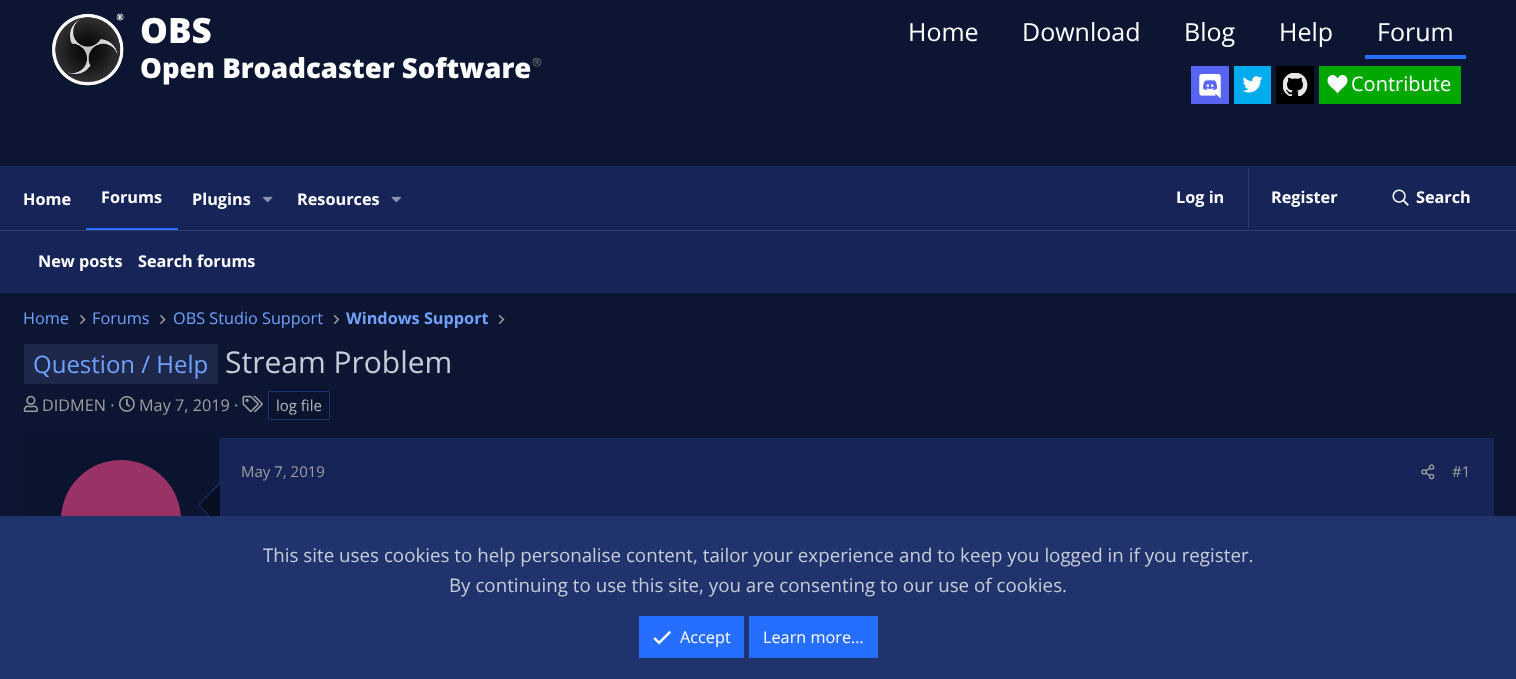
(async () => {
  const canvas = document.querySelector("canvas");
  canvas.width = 1516;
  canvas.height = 679;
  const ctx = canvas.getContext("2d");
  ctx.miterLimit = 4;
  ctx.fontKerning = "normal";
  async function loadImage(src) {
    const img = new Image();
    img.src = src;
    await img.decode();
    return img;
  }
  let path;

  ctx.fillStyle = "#0c1633";
  ctx.fillRect(0, 0, 1516, 679);
  ctx.drawImage(await loadImage("img/1.png"), 52, 13, 72, 74);
  ctx.fillStyle = "#256eff";
  ctx.fillRect(1365, 55, 101, 4);
  ctx.fillStyle = "#5865f2";
  ctx.fillRect(1191, 66, 38, 38);
  ctx.drawImage(await loadImage("img/2.png"), 1199, 74, 22, 25);
  ctx.fillStyle = "#00acee";
  ctx.fillRect(1234, 66, 37, 38);
  ctx.drawImage(await loadImage("img/3.png"), 1242, 76, 21, 17);
  ctx.fillStyle = "#000000";
  ctx.fillRect(1276, 66, 38, 38);
  ctx.drawImage(await loadImage("img/4.png"), 1283, 73, 25, 23);
  ctx.fillStyle = "#00a800";
  ctx.fillRect(1319, 66, 142, 38);
  ctx.drawImage(await loadImage("img/5.png"), 1327, 75, 21, 19);
  ctx.fillStyle = "#162458";
  ctx.fillRect(0, 166, 1516, 64);
  ctx.fillStyle = "#256eff";
  ctx.fillRect(86, 228, 92, 2);
  ctx.drawImage(await loadImage("img/6.png"), 262, 196, 11, 7);
  ctx.drawImage(await loadImage("img/7.png"), 391, 196, 10, 7);
  ctx.fillStyle = "#303d6b";
  ctx.fillRect(1248, 168, 1, 60);
  ctx.drawImage(await loadImage("img/8.png"), 1392, 189, 17, 17);
  ctx.fillStyle = "#162458";
  ctx.fillRect(0, 231, 1516, 62);
  ctx.fillStyle = "#303d6b";
  ctx.fillRect(0, 230, 1516, 1);
  ctx.drawImage(await loadImage("img/9.png"), 80, 315, 6, 9);
  ctx.drawImage(await loadImage("img/9.png"), 160, 315, 6, 9);
  ctx.drawImage(await loadImage("img/10.png"), 333, 315, 7, 9);
  ctx.drawImage(await loadImage("img/10.png"), 498, 315, 7, 9);
  ctx.fillStyle = "#1d284a";
  ctx.fillRect(24, 344, 194, 40);
  ctx.drawImage(await loadImage("img/11.png"), 23, 395, 15, 17);
  ctx.drawImage(await loadImage("img/12.png"), 119, 396, 16, 16);
  ctx.drawImage(await loadImage("img/13.png"), 242, 395, 21, 17);
  ctx.fillStyle = "#0b142f";
  ctx.beginPath();
  ctx.rect(268.5, 391.5, 61, 28);
  ctx.fill();
  ctx.strokeStyle = "#1b3171";
  ctx.stroke();
  ctx.fillStyle = "#162458";
  ctx.fillRect(219, 438, 1275, 78);
  ctx.fillStyle = "#0b142f";
  ctx.fillRect(24, 438, 195, 78);
  ctx.fillStyle = "#993366";
  ctx.beginPath();
  ctx.arc(121, 520, 60, 0, Math.PI * 2);
  ctx.fill();
  ctx.fillStyle = "#1b3171";
  path = new Path2D("M220 482V528L198 505Z");
  ctx.fill(path);
  ctx.fillStyle = "#080f22";
  path = new Path2D("M220 484V526L199 505Z");
  ctx.fill(path);
  ctx.drawImage(await loadImage("img/14.png"), 1421, 464, 14, 16);
  ctx.fillStyle = "#20336d";
  ctx.fillRect(0, 516, 1516, 163);
  ctx.fillStyle = "#256eff";
  ctx.fillRect(639, 616, 105, 42);
  ctx.drawImage(await loadImage("img/15.png"), 653, 631, 18, 14);
  ctx.fillRect(749, 616, 129, 42);
  ctx.font = "800 35px Open Sans";
  ctx.fillStyle = "#ffffff";
  ctx.fillText("OBS", 140, 43);
  ctx.font = "800 27.5px Open Sans";
  ctx.fillText("Open Broadcaster Software", 140, 78);
  ctx.font = "bold 8px Noto Color Emoji";
  ctx.fillText("®️", 532, 65);
  ctx.font = "25px Open Sans";
  for (const [text, x, y] of [
    ["Home", 908, 41],
    ["Download", 1022, 41],
    ["Blog", 1184, 41],
    ["Help", 1279, 41],
    ["Forum", 1377, 41],
  ]) {
    ctx.fillText(text, x, y);
  }
  ctx.font = "20px Open Sans";
  ctx.fillText("Contribute", 1351, 91);
  ctx.font = "bold 16.25px Open Sans";
  for (const [text, x, y] of [
    ["Home", 23, 205],
    ["Forums", 101, 203],
    ["Plugins", 192, 205],
    ["Resources", 297, 205],
    ["Log in", 1176, 203],
    ["Register", 1271, 203],
    ["Search", 1416, 203],
    ["New posts", 38, 267],
    ["Search forums", 138, 267],
  ]) {
    ctx.fillText(text, x, y);
  }
  ctx.font = "16.25px Open Sans";
  ctx.fillStyle = "#72a2ff";
  for (const [text, x, y] of [
    ["Home", 23, 324],
    ["Forums", 92, 324],
    ["OBS Studio Support", 173, 324],
  ]) {
    ctx.fillText(text, x, y);
  }
  ctx.font = "bold 16.25px Open Sans";
  ctx.fillText("Windows Support", 346, 324);
  ctx.font = "24px Open Sans";
  ctx.fillText("Question / Help", 33, 373);
  ctx.font = "30px Open Sans";
  ctx.fillStyle = "#c6ccd7";
  ctx.fillText("Stream Problem", 225, 373);
  ctx.font = "16.25px Open Sans";
  ctx.fillStyle = "#9f9f9f";
  ctx.fillText("DIDMEN ·", 42, 411);
  ctx.fillText("May 7, 2019 ·", 139, 411);
  ctx.font = "15px Open Sans";
  ctx.fillStyle = "#b3b6bb";
  ctx.fillText("log file", 276, 411);
  ctx.fillStyle = "#9f9f9f";
  ctx.fillText("May 7, 2019", 241, 477);
  ctx.fillText("#1", 1452, 477);
  ctx.font = "18.75px Open Sans";
  ctx.fillStyle = "#c6ccd7";
  ctx.fillText("This site uses cookies to help personalise content, tailor your experience and to keep you logged in if you register.", 263, 562);
  ctx.fillText("By continuing to use this site, you are consenting to our use of cookies.", 449, 592);
  ctx.font = "16.25px Open Sans";
  ctx.fillStyle = "#ffffff";
  ctx.fillText("Accept", 680, 643);
  ctx.fillText("Learn more…", 763, 643);
})();
